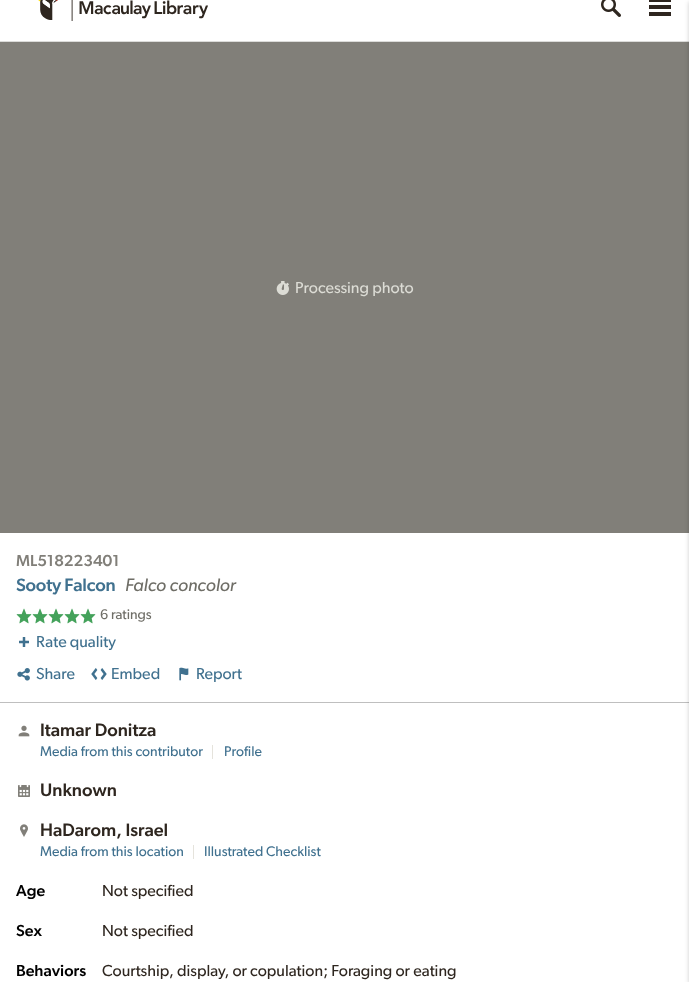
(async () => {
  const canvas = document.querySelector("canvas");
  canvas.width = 689;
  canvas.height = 982;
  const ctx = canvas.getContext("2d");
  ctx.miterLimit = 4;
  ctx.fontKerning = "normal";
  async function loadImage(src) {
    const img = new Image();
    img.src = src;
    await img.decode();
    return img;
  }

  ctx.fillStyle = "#ffffff";
  ctx.fillRect(0, 0, 689, 982);
  ctx.fillStyle = "#dbdbd9";
  ctx.fillRect(0, 41, 689, 1);
  ctx.drawImage(await loadImage("img/1.png"), 38, 0, 170, 21);
  ctx.drawImage(await loadImage("img/2.png"), 601, 0, 20, 17);
  ctx.drawImage(await loadImage("img/3.png"), 649, 0, 22, 16);
  ctx.fillStyle = "#817f79";
  ctx.fillRect(0, 42, 689, 491);
  ctx.fillStyle = "#bfbfbf";
  ctx.fillRect(0, 702, 689, 1);
  ctx.fillStyle = "rgba(0, 0, 0, 0.2)";
  ctx.filter = "blur(2px)";
  ctx.beginPath();
  ctx.rect(689, 2, 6, 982);
  ctx.fill();
  ctx.filter = "none";
  ctx.drawImage(await loadImage("img/4.png"), 276, 281, 13, 14);
  ctx.drawImage(await loadImage("img/5.png"), 16, 608, 16, 16);
  ctx.drawImage(await loadImage("img/5.png"), 32, 608, 16, 16);
  ctx.drawImage(await loadImage("img/5.png"), 48, 608, 16, 16);
  ctx.drawImage(await loadImage("img/5.png"), 64, 608, 16, 16);
  ctx.drawImage(await loadImage("img/5.png"), 80, 608, 16, 16);
  ctx.drawImage(await loadImage("img/6.png"), 19, 637, 10, 10);
  ctx.drawImage(await loadImage("img/7.png"), 17, 668, 13, 13);
  ctx.drawImage(await loadImage("img/8.png"), 91, 668, 16, 12);
  ctx.drawImage(await loadImage("img/9.png"), 179, 667, 10, 14);
  ctx.drawImage(await loadImage("img/10.png"), 18, 725, 12, 12);
  ctx.fillStyle = "#e5e3dc";
  ctx.fillRect(212, 745, 1, 14);
  ctx.drawImage(await loadImage("img/11.png"), 18, 785, 12, 12);
  ctx.drawImage(await loadImage("img/12.png"), 20, 824, 8, 13);
  ctx.fillRect(193, 845, 1, 14);
  ctx.font = "16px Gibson";
  ctx.fillStyle = "#dcdcd5";
  ctx.fillText("Processing photo", 295, 293);
  ctx.font = "500 16px Gibson";
  ctx.fillStyle = "#817f79";
  ctx.fillText("ML518223401", 16, 566);
  ctx.letterSpacing = "-0.2px";
  ctx.font = "500 18px Gibson";
  ctx.fillStyle = "#40718f";
  ctx.fillText("Sooty Falcon", 16, 591);
  ctx.letterSpacing = "0px";
  ctx.font = "italic 18px Gibson";
  ctx.fillStyle = "#6f6e67";
  ctx.fillText("Falco concolor", 125, 591);
  ctx.font = "14px Gibson";
  ctx.fillText("6 ratings", 100, 619);
  ctx.font = "16px Gibson";
  ctx.fillStyle = "#40718f";
  for (const [text, x, y] of [
    ["Rate quality", 36, 647],
    ["Share", 36, 679],
    ["Embed", 111, 679],
    ["Report", 196, 679],
  ]) {
    ctx.fillText(text, x, y);
  }
  ctx.font = "500 18px Gibson";
  ctx.fillStyle = "#2e261f";
  ctx.fillText("Itamar Donitza", 40, 736);
  ctx.font = "14px Gibson";
  ctx.fillStyle = "#40718f";
  ctx.fillText("Media from this contributor", 40, 756);
  ctx.fillText("Profile", 224, 756);
  ctx.font = "500 18px Gibson";
  ctx.fillStyle = "#2e261f";
  ctx.fillText("Unknown", 40, 796);
  ctx.fillText("HaDarom, Israel", 40, 836);
  ctx.font = "14px Gibson";
  ctx.fillStyle = "#40718f";
  ctx.fillText("Media from this location", 40, 856);
  ctx.fillText("Illustrated Checklist", 204, 856);
  ctx.font = "500 16px Gibson";
  ctx.fillStyle = "#000000";
  ctx.fillText("Age", 16, 896);
  ctx.font = "16px Gibson";
  ctx.fillStyle = "#2e261f";
  ctx.fillText("Not specified", 102, 896);
  ctx.font = "500 16px Gibson";
  ctx.fillStyle = "#000000";
  ctx.fillText("Sex", 16, 936);
  ctx.font = "16px Gibson";
  ctx.fillStyle = "#2e261f";
  ctx.fillText("Not specified", 102, 936);
  ctx.font = "500 16px Gibson";
  ctx.fillStyle = "#000000";
  ctx.fillText("Behaviors", 16, 976);
  ctx.font = "16px Gibson";
  ctx.fillStyle = "#2e261f";
  ctx.fillText("Courtship, display, or copulation; Foraging or eating", 102, 976);
})();
